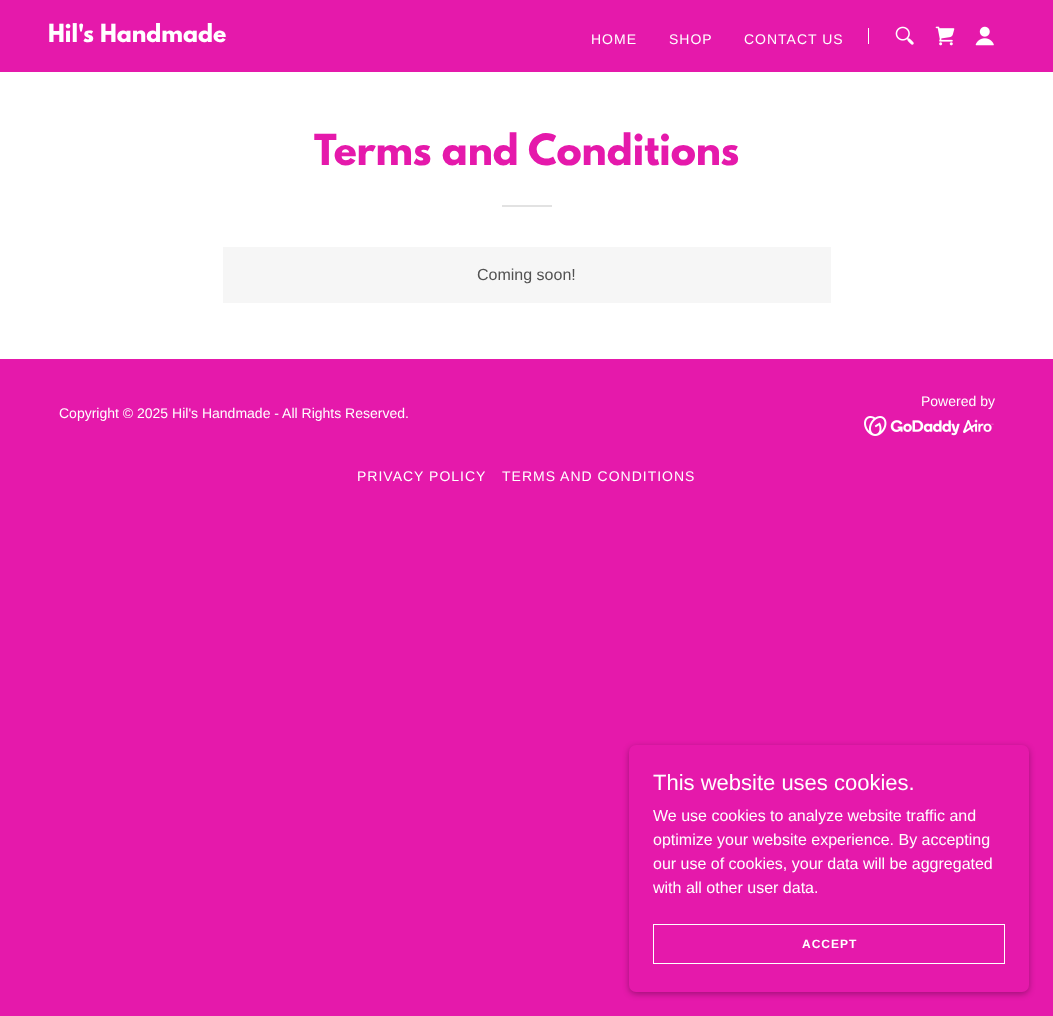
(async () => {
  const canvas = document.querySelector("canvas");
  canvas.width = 1053;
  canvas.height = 1016;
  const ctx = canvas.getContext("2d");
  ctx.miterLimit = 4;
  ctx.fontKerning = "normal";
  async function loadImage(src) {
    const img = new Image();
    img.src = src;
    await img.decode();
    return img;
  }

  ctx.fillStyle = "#e519ab";
  ctx.fillRect(0, 0, 1053, 1016);
  ctx.fillStyle = "#ffffff";
  ctx.fillRect(868, 28, 1, 16);
  ctx.drawImage(await loadImage("img/1.png"), 895, 26, 19, 19);
  ctx.drawImage(await loadImage("img/2.png"), 935, 26, 20, 20);
  ctx.drawImage(await loadImage("img/3.png"), 975, 26, 19, 20);
  for (const [x, y, w, h, color] of [
    [0, 72, 1053, 287, "#ffffff"],
    [502, 205, 50, 2, "#e2e2e2"],
    [223, 247, 608, 56, "#f6f6f6"],
  ]) {
    ctx.fillStyle = color;
    ctx.fillRect(x, y, w, h);
  }
  ctx.drawImage(await loadImage("img/4.png"), 864, 416, 130, 20);
  ctx.fillStyle = "rgba(0, 0, 0, 0.3)";
  ctx.filter = "blur(3px)";
  ctx.beginPath();
  ctx.roundRect(629, 747, 400, 247, 7);
  ctx.fill();
  ctx.filter = "none";
  ctx.fillStyle = "#e519ab";
  ctx.beginPath();
  ctx.roundRect(629, 745, 400, 247, 7);
  ctx.fill();
  ctx.strokeStyle = "#ffffff";
  ctx.strokeRect(653.5, 924.5, 351, 39);
  ctx.font = "bold 22px League Spartan";
  ctx.fillStyle = "#ffffff";
  ctx.fillText("Hil's Handmade", 48, 42);
  ctx.letterSpacing = "1px";
  ctx.font = "14px Liberation Sans";
  for (const [text, x, y] of [
    ["HOME", 591, 44],
    ["SHOP", 669, 44],
    ["CONTACT US", 744, 44],
  ]) {
    ctx.fillText(text, x, y);
  }
  ctx.letterSpacing = "0px";
  ctx.font = "bold 38px League Spartan";
  ctx.fillStyle = "#e519ab";
  ctx.fillText("Terms and Conditions", 314, 165);
  ctx.font = "16px Liberation Sans";
  ctx.fillStyle = "#525252";
  ctx.fillText("Coming soon!", 477, 280);
  ctx.font = "14px Liberation Sans";
  ctx.fillStyle = "#ffffff";
  ctx.fillText("Powered by", 921, 406);
  ctx.fillText("Copyright © 2025 Hil's Handmade - All Rights Reserved.", 59, 418);
  ctx.letterSpacing = "1px";
  ctx.fillText("PRIVACY POLICY", 357, 481);
  ctx.fillText("TERMS AND CONDITIONS", 502, 481);
  ctx.letterSpacing = "0px";
  ctx.font = "22px Liberation Sans";
  ctx.fillText("This website uses cookies.", 653, 790);
  ctx.font = "16px Liberation Sans";
  for (const [text, x, y] of [
    ["We use cookies to analyze website traffic and", 653, 821],
    ["optimize your website experience. By accepting", 653, 845],
    ["our use of cookies, your data will be aggregated", 653, 869],
    ["with all other user data.", 653, 893],
  ]) {
    ctx.fillText(text, x, y);
  }
  ctx.letterSpacing = "1px";
  ctx.font = "bold 12px Liberation Sans";
  ctx.fillText("ACCEPT", 802, 948);
})();
